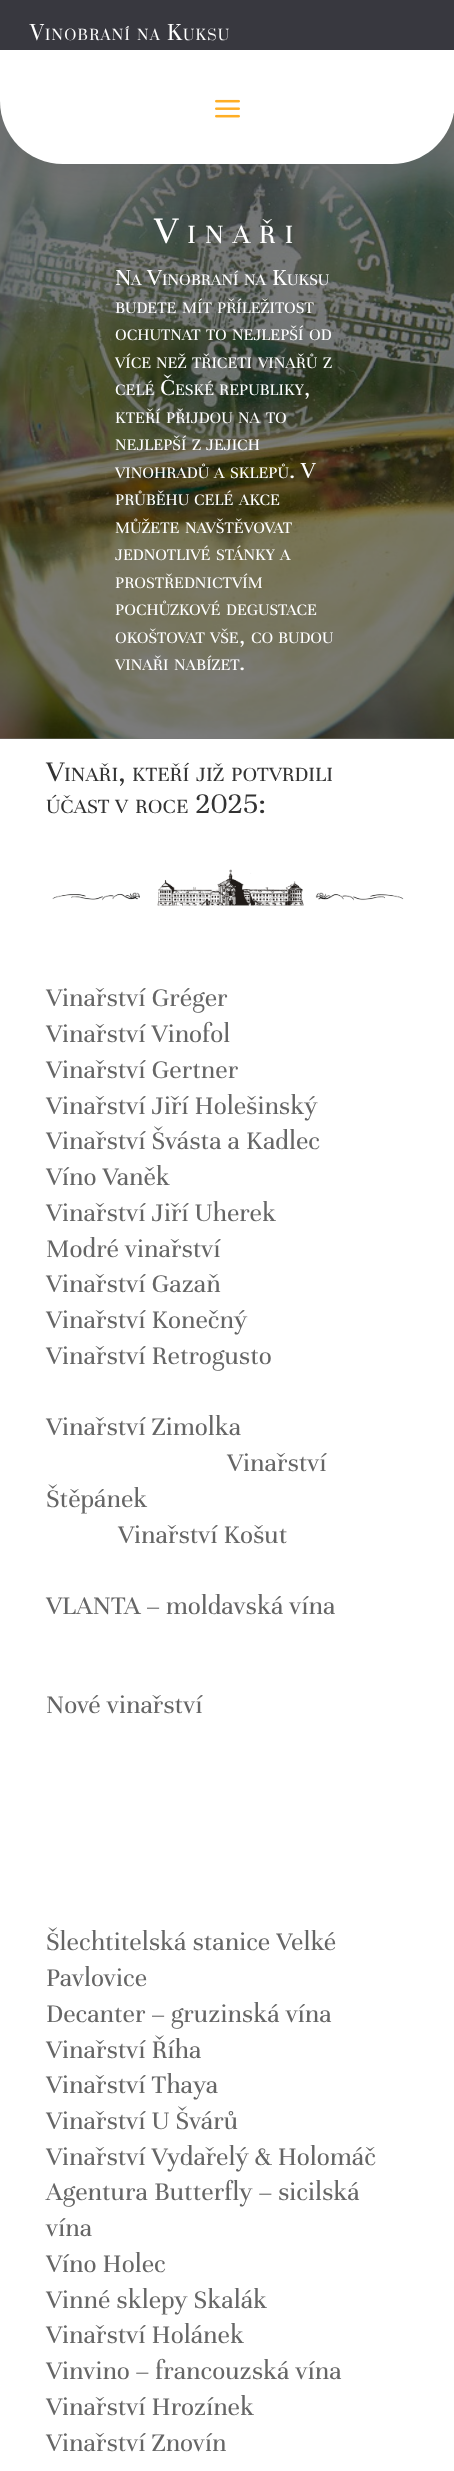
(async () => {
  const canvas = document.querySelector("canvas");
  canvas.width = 454;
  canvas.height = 2471;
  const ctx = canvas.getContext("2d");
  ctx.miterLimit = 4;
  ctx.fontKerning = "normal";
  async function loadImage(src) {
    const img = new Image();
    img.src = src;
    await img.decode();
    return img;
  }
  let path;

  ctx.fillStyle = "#ffffff";
  ctx.fillRect(0, 0, 454, 2471);
  ctx.fillStyle = "#7a7a7a";
  ctx.fillRect(0, 738, 454, 1);
  ctx.drawImage(await loadImage("img/2.png"), 0, 101, 454, 638);
  ctx.fillStyle = "rgba(0, 0, 0, 0.13)";
  ctx.filter = "blur(37.5px)";
  ctx.beginPath();
  ctx.roundRect(0, 3, 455, 163, 63);
  ctx.fill();
  ctx.filter = "none";
  ctx.fillStyle = "#ffffff";
  path = new Path2D("M0 0H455V101C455 136 427 164 392 164H63C28 164 0 136 0 101Z");
  ctx.fill(path);
  ctx.fillStyle = "#38383f";
  ctx.fillRect(0, 0, 454, 50);
  ctx.drawImage(await loadImage("img/1.png"), 215, 99, 25, 19);
  ctx.drawImage(await loadImage("img/3.png"), 52, 869, 352, 37);
  ctx.letterSpacing = "1.25px";
  ctx.font = "20px Prata";
  ctx.fillStyle = "#ffffff";
  ctx.fillText("V", 30, 40);
  ctx.font = "14px Prata";
  ctx.fillText("INOBRANÍ", 45, 40);
  ctx.fillText("NA", 137, 40);
  ctx.font = "20px Prata";
  ctx.fillText("K", 167, 40);
  ctx.font = "14px Prata";
  ctx.fillText("UKSU", 183, 40);
  ctx.letterSpacing = "8.75px";
  ctx.font = "41px Unna";
  ctx.fillText("V", 154, 243);
  ctx.font = "29px Unna";
  ctx.fillText("INAŘI", 187, 243);
  ctx.letterSpacing = "0px";
  ctx.font = "25px Unna";
  ctx.fillText("N", 115, 285);
  ctx.font = "17.5px Unna";
  ctx.fillText("A", 131, 285);
  ctx.font = "25px Unna";
  ctx.fillText("V", 147, 285);
  ctx.font = "17.5px Unna";
  ctx.fillText("INOBRANÍ", 162, 285);
  ctx.fillText("NA", 244, 285);
  ctx.font = "25px Unna";
  ctx.fillText("K", 272, 285);
  ctx.font = "17.5px Unna";
  for (const [text, x, y] of [
    ["UKSU", 287, 285],
    ["BUDETE", 115, 313],
    ["MÍT", 182, 313],
    ["PŘÍLEŽITOST", 217, 313],
    ["OCHUTNAT", 115, 340],
    ["TO", 206, 340],
    ["NEJLEPŠÍ", 232, 340],
    ["OD", 309, 340],
    ["VÍCE", 115, 368],
    ["NEŽ", 156, 368],
    ["TŘICETI", 192, 368],
    ["VINAŘŮ", 258, 368],
    ["Z", 323, 368],
    ["CELÉ", 115, 395],
  ]) {
    ctx.fillText(text, x, y);
  }
  ctx.font = "25px Unna";
  ctx.fillText("Č", 160, 395);
  ctx.font = "17.5px Unna";
  ctx.fillText("ESKÉ", 175, 395);
  ctx.fillText("REPUBLIKY", 219, 395);
  ctx.font = "25px Unna";
  ctx.fillText(",", 304, 395);
  ctx.font = "17.5px Unna";
  for (const [text, x, y] of [
    ["KTEŘÍ", 115, 423],
    ["PŘIJDOU", 166, 423],
    ["NA", 238, 423],
    ["TO", 266, 423],
    ["NEJLEPŠÍ", 115, 450],
    ["Z", 192, 450],
    ["JEJICH", 206, 450],
    ["VINOHRADŮ", 115, 478],
    ["A", 214, 478],
    ["SKLEPŮ", 230, 478],
  ]) {
    ctx.fillText(text, x, y);
  }
  ctx.font = "25px Unna";
  ctx.fillText(". V", 289, 478);
  ctx.font = "17.5px Unna";
  for (const [text, x, y] of [
    ["PRŮBĚHU", 115, 505],
    ["CELÉ", 194, 505],
    ["AKCE", 239, 505],
    ["MŮŽETE", 115, 533],
    ["NAVŠTĚVOVAT", 185, 533],
    ["JEDNOTLIVÉ", 115, 560],
    ["STÁNKY", 216, 560],
    ["A", 280, 560],
    ["PROSTŘEDNICTVÍM", 115, 588],
    ["POCHŮZKOVÉ", 115, 615],
    ["DEGUSTACE", 226, 615],
    ["OKOŠTOVAT", 115, 643],
    ["VŠE", 210, 643],
  ]) {
    ctx.fillText(text, x, y);
  }
  ctx.font = "25px Unna";
  ctx.fillText(",", 239, 643);
  ctx.font = "17.5px Unna";
  for (const [text, x, y] of [
    ["CO", 251, 643],
    ["BUDOU", 278, 643],
    ["VINAŘI", 115, 670],
    ["NABÍZET", 174, 670],
  ]) {
    ctx.fillText(text, x, y);
  }
  ctx.font = "25px Unna";
  ctx.fillText(".", 239, 670);
  ctx.font = "31px Unna";
  ctx.fillStyle = "#333333";
  ctx.fillText("V", 46, 781);
  ctx.font = "22px Unna";
  ctx.fillText("INAŘI", 64, 781);
  ctx.font = "31px Unna";
  ctx.fillText(",", 118, 781);
  ctx.font = "22px Unna";
  for (const [text, x, y] of [
    ["KTEŘÍ", 132, 781],
    ["JIŽ", 196, 781],
    ["POTVRDILI", 231, 781],
    ["ÚČAST", 46, 813],
    ["V", 115, 813],
    ["ROCE", 135, 813],
  ]) {
    ctx.fillText(text, x, y);
  }
  ctx.font = "31px Unna";
  ctx.fillText("2025:", 195, 813);
  ctx.font = "27.5px Unna";
  ctx.fillStyle = "#666666";
  for (const [text, x, y] of [
    ["Vinařství Gréger", 46, 1006],
    ["Vinařství Vinofol", 46, 1042],
    ["Vinařství Gertner", 46, 1078],
    ["Vinařství Jiří Holešinský", 46, 1114],
    ["Vinařství Švásta a Kadlec", 46, 1149],
    ["Víno Vaněk", 46, 1185],
    ["Vinařství Jiří Uherek", 46, 1221],
    ["Modré vinařství", 46, 1257],
    ["Vinařství Gazaň", 46, 1292],
    ["Vinařství Konečný", 46, 1328],
    ["Vinařství Retrogusto", 46, 1364],
    ["Vinařství Zimolka", 46, 1435],
    ["Vinařství", 227, 1471],
    ["Štěpánek", 46, 1507],
    ["Vinařství Košut", 118, 1543],
    ["VLANTA – moldavská vína", 46, 1614],
    ["Nové vinařství", 46, 1713],
    ["Šlechtitelská stanice Velké", 46, 1950],
    ["Pavlovice", 46, 1986],
    ["Decanter – gruzinská vína", 46, 2022],
    ["Vinařství Říha", 46, 2058],
    ["Vinařství Thaya", 46, 2093],
    ["Vinařství U Švárů", 46, 2129],
    ["Vinařství Vydařelý & Holomáč", 46, 2165],
    ["Agentura Butterfly – sicilská", 46, 2200],
    ["vína", 46, 2236],
    ["Víno Holec", 46, 2272],
    ["Vinné sklepy Skalák", 46, 2308],
    ["Vinařství Holánek", 46, 2343],
    ["Vinvino – francouzská vína", 46, 2379],
    ["Vinařství Hrozínek", 46, 2415],
    ["Vinařství Znovín", 46, 2451],
  ]) {
    ctx.fillText(text, x, y);
  }
})();
